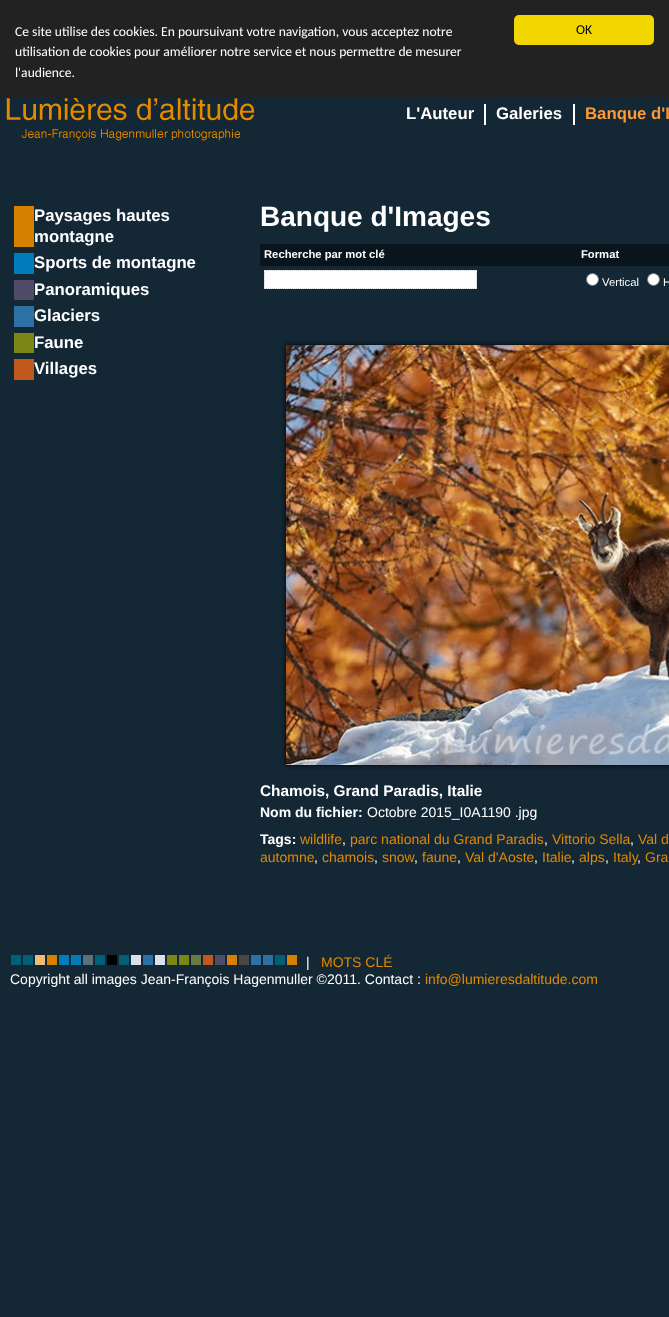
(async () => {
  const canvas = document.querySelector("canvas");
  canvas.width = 669;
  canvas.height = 1317;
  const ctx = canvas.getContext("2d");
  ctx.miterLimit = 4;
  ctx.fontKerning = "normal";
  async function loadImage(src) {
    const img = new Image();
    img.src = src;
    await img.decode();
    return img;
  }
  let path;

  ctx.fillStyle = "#142735";
  ctx.fillRect(0, 0, 669, 1317);
  ctx.fillStyle = "#222222";
  ctx.fillRect(0, 0, 669, 98);
  ctx.fillStyle = "#f1d600";
  ctx.beginPath();
  ctx.roundRect(514, 15, 140, 30, 5);
  ctx.fill();
  ctx.drawImage(await loadImage("img/1.png"), 6, 98, 249, 43);
  for (const [x, y, w, h, color] of [
    [484, 104, 2, 21, "#ffffff"],
    [573, 104, 2, 21, "#ffffff"],
    [14, 206, 20, 41, "#d68000"],
    [14, 253, 20, 21, "#007cbb"],
    [14, 280, 20, 20, "#504c67"],
    [14, 306, 20, 21, "#2e71a5"],
    [14, 333, 20, 20, "#7a8715"],
    [14, 359, 20, 21, "#c2591c"],
    [260, 244, 409, 22, "#09141d"],
    [264, 270, 213, 19, "#ffffff"],
  ]) {
    ctx.fillStyle = color;
    ctx.fillRect(x, y, w, h);
  }
  path = new Path2D("M264 270.5H477");
  ctx.strokeStyle = "#cccccc";
  ctx.setLineDash([1, 1]);
  ctx.stroke(path);
  path = new Path2D("M476.5 270V289");
  ctx.stroke(path);
  path = new Path2D("M264 288.5H477");
  ctx.stroke(path);
  path = new Path2D("M264.5 270V289");
  ctx.stroke(path);
  ctx.beginPath();
  ctx.arc(592.5, 279.5, 6, 0, Math.PI * 2);
  ctx.fill();
  ctx.strokeStyle = "#767676";
  ctx.setLineDash([]);
  ctx.stroke();
  ctx.beginPath();
  ctx.arc(653.5, 279.5, 6, 0, Math.PI * 2);
  ctx.fill();
  ctx.stroke();
  ctx.fillStyle = "#000000";
  ctx.filter = "blur(2.5px)";
  ctx.beginPath();
  ctx.rect(286, 345, 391, 420);
  ctx.fill();
  ctx.filter = "none";
  ctx.drawImage(await loadImage("img/2.png"), 286, 345, 383, 420);
  for (const [x, y, w, h, color] of [
    [11, 955, 10, 10, "#006077"],
    [23, 955, 10, 10, "#006077"],
    [35, 955, 10, 10, "#eebe74"],
    [47, 955, 10, 10, "#d68000"],
    [59, 955, 10, 10, "#007cbb"],
    [71, 955, 10, 10, "#007cbb"],
    [83, 955, 10, 10, "#5b707a"],
    [95, 955, 10, 10, "#006077"],
    [107, 955, 10, 10, "#000000"],
    [119, 955, 10, 10, "#006077"],
    [131, 955, 10, 10, "#d9dfeb"],
    [143, 955, 10, 10, "#2e71a5"],
    [155, 955, 10, 10, "#d9dfeb"],
    [167, 955, 10, 10, "#7a8715"],
    [179, 955, 10, 10, "#7a8715"],
    [191, 955, 10, 10, "#687a40"],
    [203, 955, 10, 10, "#c2591c"],
    [215, 955, 10, 10, "#504c67"],
    [227, 955, 10, 10, "#d68000"],
    [239, 955, 10, 10, "#484848"],
    [251, 955, 10, 10, "#2e71a5"],
    [263, 955, 10, 10, "#2e71a5"],
    [275, 955, 10, 10, "#006077"],
    [287, 955, 10, 10, "#d68000"],
  ]) {
    ctx.fillStyle = color;
    ctx.fillRect(x, y, w, h);
  }
  ctx.font = "13.6px Carlito";
  ctx.fillStyle = "#ffffff";
  for (const [text, x, y] of [
    ["Ce site utilise des cookies. En poursuivant votre navigation, vous acceptez notre", 15, 36],
    ["utilisation de cookies pour améliorer notre service et nous permettre de mesurer", 15, 56],
    ["l'audience.", 15, 77],
  ]) {
    ctx.fillText(text, x, y);
  }
  ctx.fillStyle = "#000000";
  ctx.fillText("OK", 576, 34);
  ctx.font = "bold 16.75px Liberation Sans";
  ctx.fillStyle = "#ffffff";
  ctx.fillText("L'Auteur", 406, 119);
  ctx.fillText("Galeries", 496, 119);
  ctx.fillStyle = "#ff9933";
  ctx.fillText("Banque d'I", 585, 119);
  ctx.fillStyle = "#ffffff";
  for (const [text, x, y] of [
    ["Paysages hautes", 34, 221],
    ["montagne", 34, 242],
    ["Sports de montagne", 34, 268],
    ["Panoramiques", 34, 295],
    ["Glaciers", 34, 321],
    ["Faune", 34, 348],
    ["Villages", 34, 374],
  ]) {
    ctx.fillText(text, x, y);
  }
  ctx.font = "bold 28px Liberation Sans";
  ctx.fillText("Banque d'Images", 260, 226);
  ctx.font = "bold 11.25px Liberation Sans";
  ctx.fillText("Recherche par mot clé", 264, 258);
  ctx.fillText("Format", 581, 258);
  ctx.font = "11.25px Liberation Sans";
  ctx.fillText("Vertical", 602, 286);
  ctx.fillText("H", 663, 286);
  ctx.font = "bold 15.4px Liberation Sans";
  ctx.fillText("Chamois, Grand Paradis, Italie", 260, 796);
  ctx.font = "bold 14px Liberation Sans";
  ctx.fillText("Nom du fichier:", 260, 817);
  ctx.font = "14px Liberation Sans";
  ctx.fillText("Octobre 2015_I0A1190 .jpg", 367, 817);
  ctx.font = "bold 14px Liberation Sans";
  ctx.fillText("Tags:", 260, 844);
  ctx.font = "14px Liberation Sans";
  ctx.fillStyle = "#e28a00";
  ctx.fillText("wildlife", 300, 844);
  ctx.fillStyle = "#ffffff";
  ctx.fillText(",", 342, 844);
  ctx.fillStyle = "#e28a00";
  ctx.fillText("parc national du Grand Paradis", 350, 844);
  ctx.fillStyle = "#ffffff";
  ctx.fillText(",", 544, 844);
  ctx.fillStyle = "#e28a00";
  ctx.fillText("Vittorio Sella", 552, 844);
  ctx.fillStyle = "#ffffff";
  ctx.fillText(",", 630, 844);
  ctx.fillStyle = "#e28a00";
  ctx.fillText("Val d", 638, 844);
  ctx.fillText("automne", 260, 862);
  ctx.fillStyle = "#ffffff";
  ctx.fillText(",", 314, 862);
  ctx.fillStyle = "#e28a00";
  ctx.fillText("chamois", 322, 862);
  ctx.fillStyle = "#ffffff";
  ctx.fillText(",", 374, 862);
  ctx.fillStyle = "#e28a00";
  ctx.fillText("snow", 382, 862);
  ctx.fillStyle = "#ffffff";
  ctx.fillText(",", 414, 862);
  ctx.fillStyle = "#e28a00";
  ctx.fillText("faune", 422, 862);
  ctx.fillStyle = "#ffffff";
  ctx.fillText(",", 457, 862);
  ctx.fillStyle = "#e28a00";
  ctx.fillText("Val d'Aoste", 465, 862);
  ctx.fillStyle = "#ffffff";
  ctx.fillText(",", 534, 862);
  ctx.fillStyle = "#e28a00";
  ctx.fillText("Italie", 542, 862);
  ctx.fillStyle = "#ffffff";
  ctx.fillText(",", 571, 862);
  ctx.fillStyle = "#e28a00";
  ctx.fillText("alps", 579, 862);
  ctx.fillStyle = "#ffffff";
  ctx.fillText(",", 605, 862);
  ctx.fillStyle = "#e28a00";
  ctx.fillText("Italy", 613, 862);
  ctx.fillText("Gra", 645, 862);
  ctx.fillStyle = "#ffffff";
  ctx.fillText(",", 637, 862);
  ctx.fillText("|", 306, 967);
  ctx.fillStyle = "#e28a00";
  ctx.fillText("MOTS CLÉ", 321, 967);
  ctx.fillStyle = "#ffffff";
  ctx.fillText("Copyright all images Jean-François Hagenmuller ©2011. Contact :", 10, 984);
  ctx.fillStyle = "#e28a00";
  ctx.fillText("info@lumieresdaltitude.com", 425, 984);
})();
